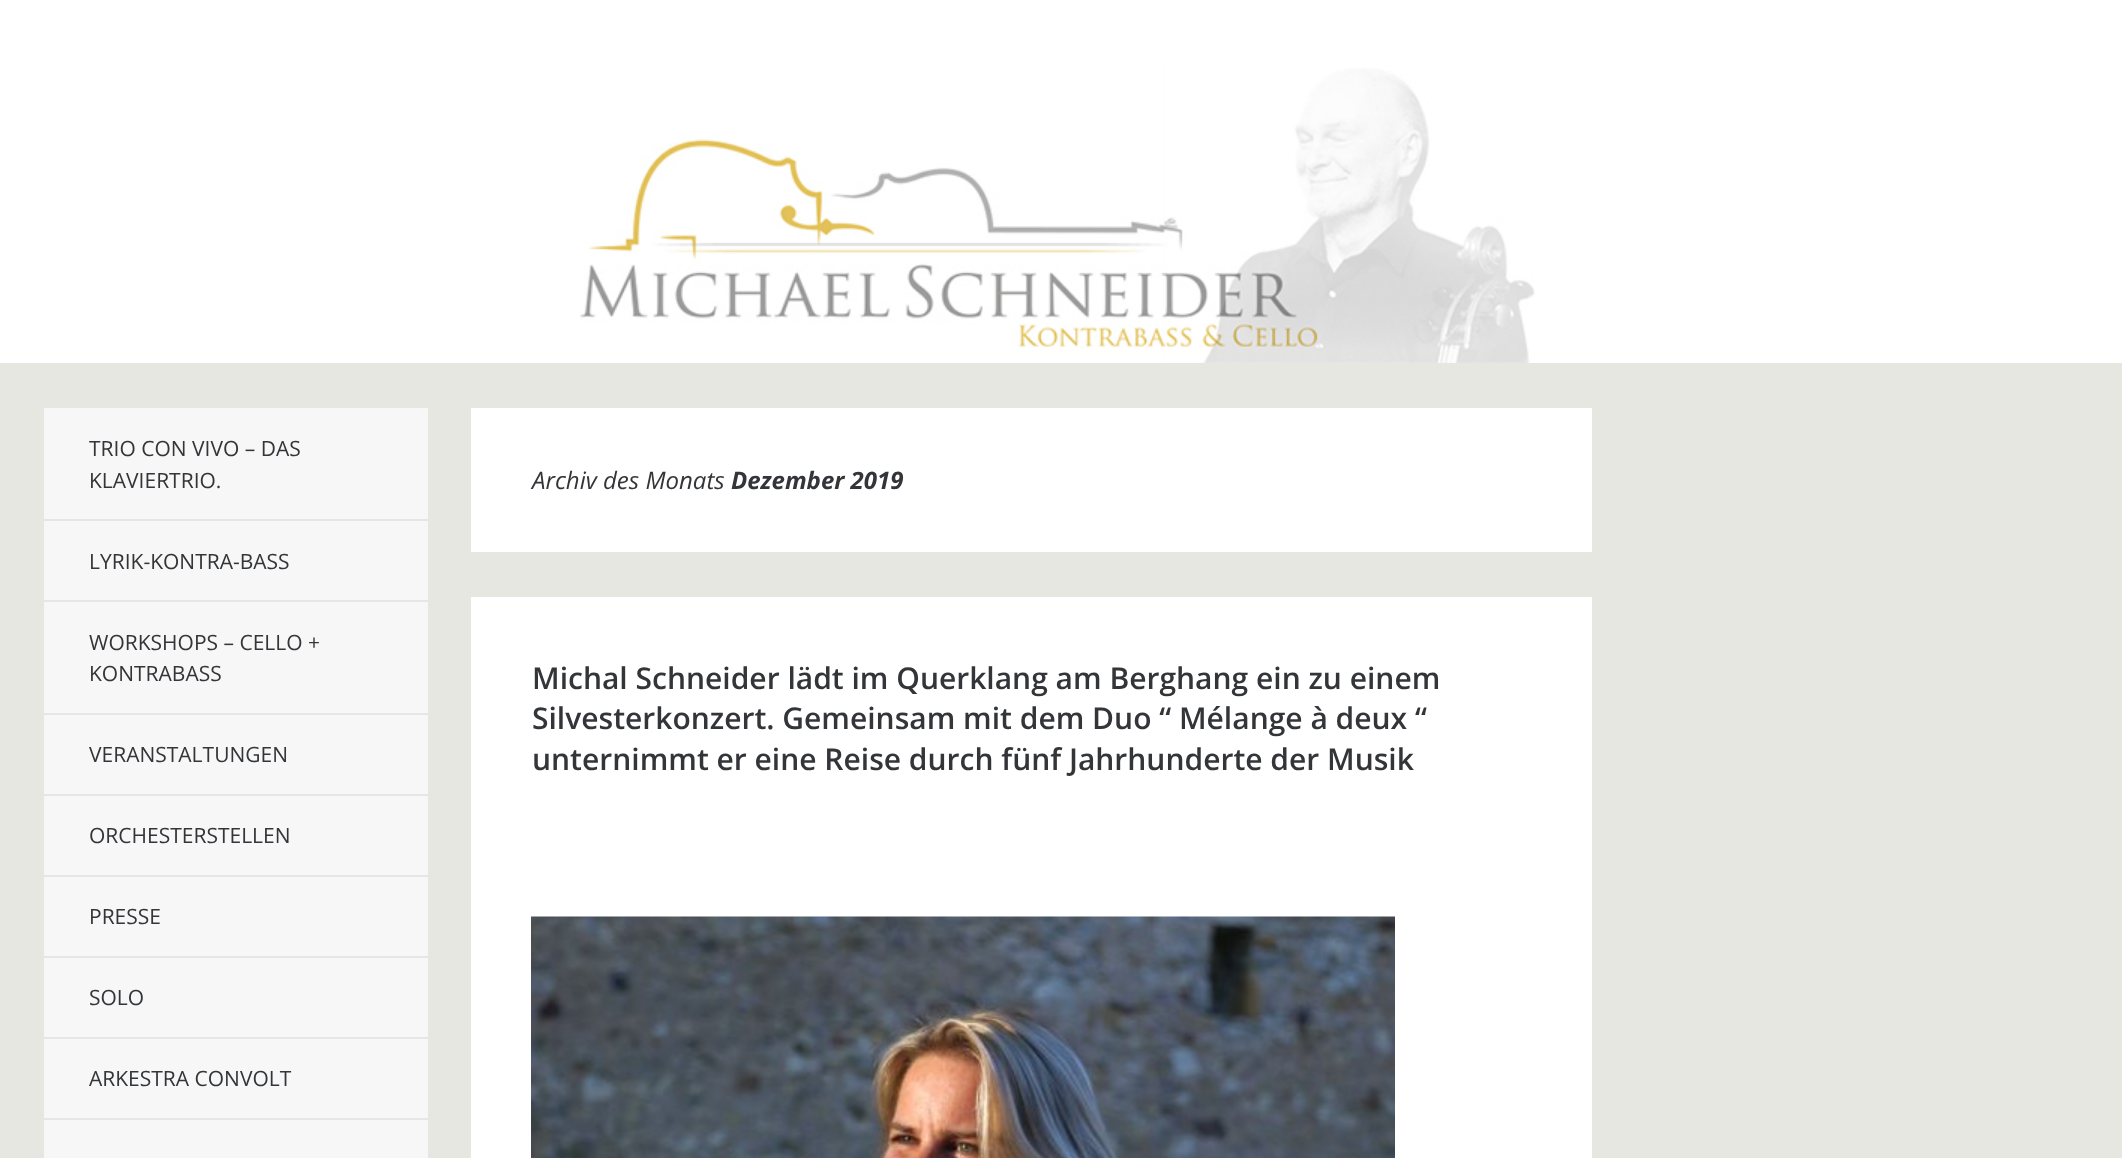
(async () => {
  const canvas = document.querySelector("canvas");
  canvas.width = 2122;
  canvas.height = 1158;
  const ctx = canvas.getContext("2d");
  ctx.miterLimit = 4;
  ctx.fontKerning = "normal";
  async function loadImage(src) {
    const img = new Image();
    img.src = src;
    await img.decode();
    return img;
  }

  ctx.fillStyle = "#e7e7e2";
  ctx.fillRect(0, 0, 2122, 1158);
  ctx.fillStyle = "#ffffff";
  ctx.fillRect(0, 0, 2122, 363);
  ctx.drawImage(await loadImage("img/1.png"), 580, 68, 955, 295);
  for (const [x, y, w, h, color] of [
    [44, 408, 384, 750, "#f7f7f7"],
    [44, 519, 384, 2, "#e6e6e6"],
    [44, 600, 384, 2, "#e6e6e6"],
    [44, 713, 384, 2, "#e6e6e6"],
    [44, 794, 384, 2, "#e6e6e6"],
    [44, 875, 384, 2, "#e6e6e6"],
    [44, 956, 384, 2, "#e6e6e6"],
    [44, 1037, 384, 2, "#e6e6e6"],
    [44, 1118, 384, 2, "#e6e6e6"],
    [471, 408, 1121, 144, "#ffffff"],
    [471, 597, 1121, 561, "#ffffff"],
  ]) {
    ctx.fillStyle = color;
    ctx.fillRect(x, y, w, h);
  }
  ctx.drawImage(await loadImage("img/2.png"), 531, 916, 864, 242);
  ctx.font = "21px Open Sans";
  ctx.fillStyle = "#333538";
  for (const [text, x, y] of [
    ["TRIO CON VIVO – DAS", 89, 456],
    ["KLAVIERTRIO.", 89, 488],
    ["LYRIK-KONTRA-BASS", 89, 569],
    ["WORKSHOPS – CELLO +", 89, 650],
    ["KONTRABASS", 89, 681],
    ["VERANSTALTUNGEN", 89, 762],
    ["ORCHESTERSTELLEN", 89, 843],
    ["PRESSE", 89, 924],
    ["SOLO", 89, 1005],
    ["ARKESTRA CONVOLT", 89, 1086],
  ]) {
    ctx.fillText(text, x, y);
  }
  ctx.font = "italic 24px Open Sans";
  ctx.fillText("Archiv des Monats", 532, 489);
  ctx.font = "italic bold 24px Open Sans";
  ctx.fillText("Dezember 2019", 731, 489);
  ctx.font = "600 30px Open Sans";
  for (const [text, x, y] of [
    ["Michal Schneider lädt im Querklang am Berghang ein zu einem", 532, 689],
    ["Silvesterkonzert. Gemeinsam mit dem Duo “ Mélange à deux “", 532, 729],
    ["unternimmt er eine Reise durch fünf Jahrhunderte der Musik", 532, 770],
  ]) {
    ctx.fillText(text, x, y);
  }
})();
